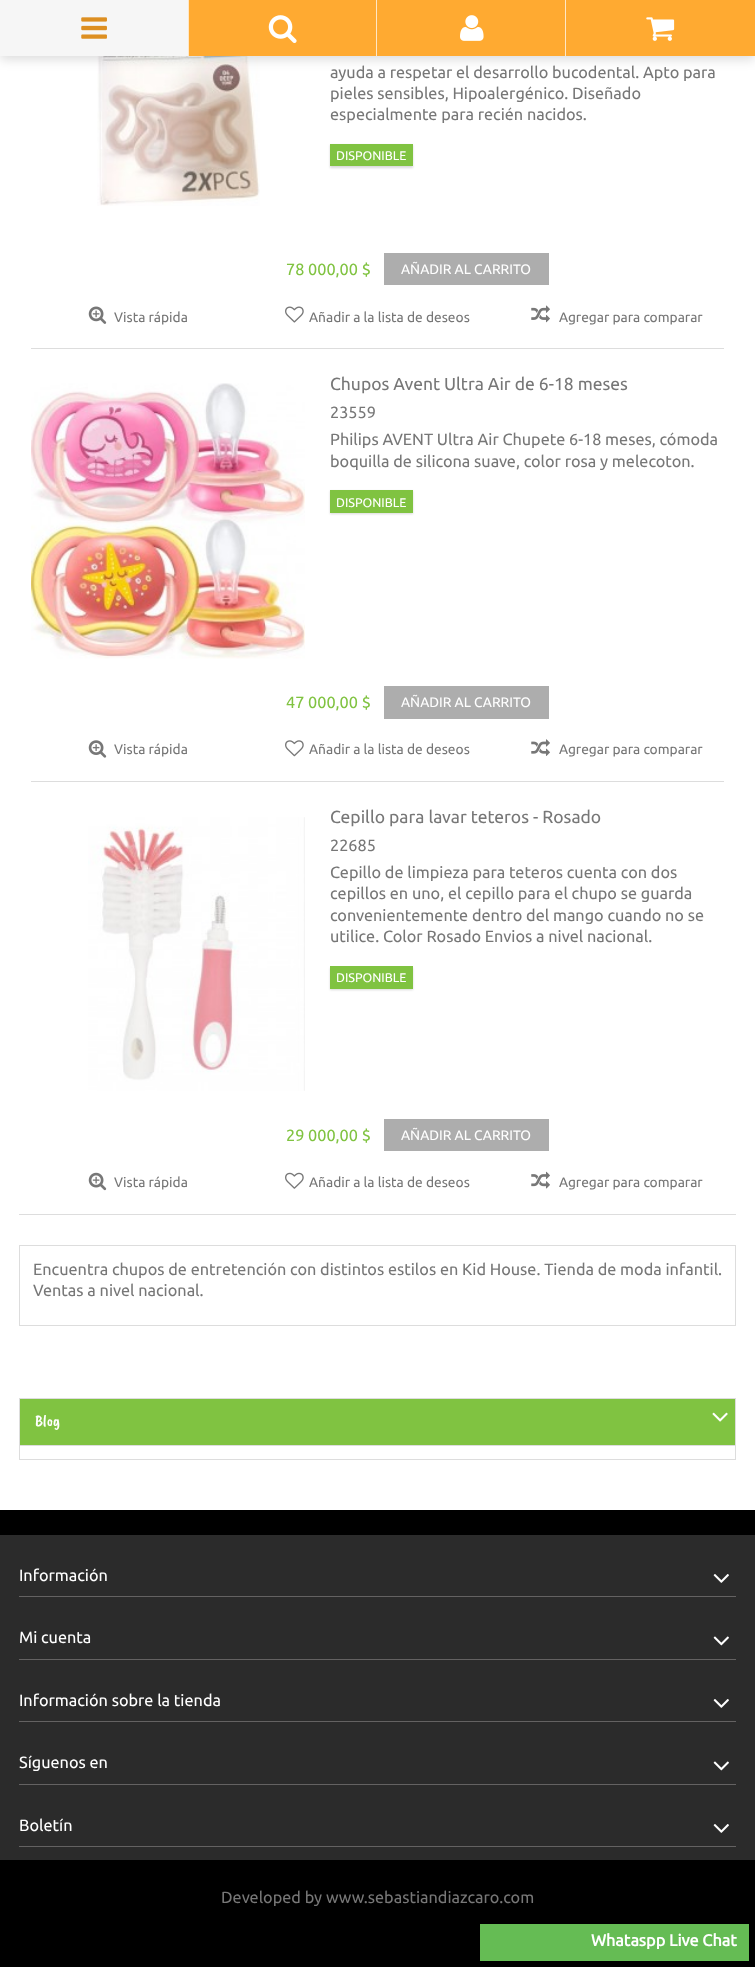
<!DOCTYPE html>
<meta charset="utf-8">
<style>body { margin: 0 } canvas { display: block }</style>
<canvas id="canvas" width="755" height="1967"></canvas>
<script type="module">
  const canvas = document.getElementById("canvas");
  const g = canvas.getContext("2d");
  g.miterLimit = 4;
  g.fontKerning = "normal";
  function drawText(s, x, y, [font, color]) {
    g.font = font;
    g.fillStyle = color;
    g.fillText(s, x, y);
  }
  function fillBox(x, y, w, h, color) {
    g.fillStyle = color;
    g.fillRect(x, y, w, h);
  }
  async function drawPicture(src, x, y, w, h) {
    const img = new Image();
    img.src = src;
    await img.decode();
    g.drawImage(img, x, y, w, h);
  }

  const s1 = ["16.25px Ubuntu", "#777777"];
  const s2 = ["12.5px Ubuntu", "#FFFFFF"];
  const s3 = ["16.25px Ubuntu", "#80C341"];
  const s4 = ["13.75px Ubuntu", "#FFFFFF"];
  const s5 = ["13.75px Ubuntu", "#777777"];
  const s6 = ["17.5px Ubuntu", "#777777"];
  const s7 = ["16.25px Caveat Brush", "#FFFFFF"];
  const s8 = ["16.25px Ubuntu", "#FFFFFF"];
  const s9 = ["bold 16.25px Ubuntu", "#FFFFFF"];

  fillBox(0, 0, 755, 1967, "#FFFFFF");
  await drawPicture("pic5.png", 97, 56, 163, 150);
  g.fillStyle = "rgba(0, 0, 0, 0.15)";
  g.filter = "blur(6px)";
  g.beginPath();
  g.rect(0, 3, 755, 56);
  g.fill();
  g.filter = "none";
  fillBox(189, 0, 566, 56, "#FFAA31");
  fillBox(188, 0, 1, 56, "#FFE7C5");
  fillBox(0, 0, 188, 56, "#F6F6F6");
  await drawPicture("pic1.png", 81, 17, 26, 22);
  fillBox(376, 0, 1, 56, "#FFE7C5");
  await drawPicture("pic2.png", 268, 15, 29, 28);
  fillBox(565, 0, 1, 56, "#FFE7C5");
  await drawPicture("pic3.png", 460, 15, 24, 26);
  await drawPicture("pic4.png", 646, 17, 29, 24);
  drawText("ayuda a respetar el desarrollo bucodental. Apto para", 330, 78, s1);
  drawText("pieles sensibles, Hipoalergénico. Diseñado", 330, 99, s1);
  drawText("especialmente para recién nacidos.", 330, 120, s1);
  g.fillStyle = "rgba(0, 0, 0, 0.15)";
  g.filter = "blur(1px)";
  g.beginPath();
  g.rect(330, 145, 83, 23);
  g.fill();
  g.filter = "none";
  fillBox(330, 144, 83, 22, "#80C341");
  drawText("DISPONIBLE", 336, 160, s2);
  drawText("78 000,00 $", 286, 275, s3);
  fillBox(384, 253, 165, 32, "#ADADAD");
  drawText("AÑADIR AL CARRITO", 401, 274, s4);
  await drawPicture("pic6.png", 88, 306, 19, 18);
  drawText("Vista rápida", 114, 322, s5);
  await drawPicture("pic7.png", 285, 306, 19, 17);
  drawText("Añadir a la lista de deseos", 309, 322, s5);
  await drawPicture("pic8.png", 531, 305, 19, 18);
  drawText("Agregar para comparar", 559, 322, s5);
  fillBox(31, 348, 693, 1, "#DDDDDD");
  await drawPicture("pic9.png", 31, 383, 274, 276);
  await drawPicture("pic10.png", 31, 440, 1, 158);
  drawText("Chupos Avent Ultra Air de 6-18 meses", 330, 390, s6);
  drawText("23559", 330, 418, s1);
  drawText("Philips AVENT Ultra Air Chupete 6-18 meses, cómoda", 330, 445, s1);
  drawText("boquilla de silicona suave, color rosa y melecoton.", 330, 467, s1);
  g.fillStyle = "rgba(0, 0, 0, 0.15)";
  g.filter = "blur(1px)";
  g.beginPath();
  g.rect(330, 491, 83, 23);
  g.fill();
  g.filter = "none";
  fillBox(330, 490, 83, 23, "#80C341");
  drawText("DISPONIBLE", 336, 507, s2);
  drawText("47 000,00 $", 286, 708, s3);
  fillBox(384, 686, 165, 33, "#ADADAD");
  drawText("AÑADIR AL CARRITO", 401, 707, s4);
  await drawPicture("pic11.png", 88, 740, 19, 18);
  drawText("Vista rápida", 114, 754, s5);
  await drawPicture("pic12.png", 285, 740, 19, 17);
  drawText("Añadir a la lista de deseos", 309, 754, s5);
  await drawPicture("pic13.png", 531, 739, 19, 17);
  drawText("Agregar para comparar", 559, 754, s5);
  fillBox(31, 781, 693, 1, "#DDDDDD");
  await drawPicture("pic14.png", 88, 817, 217, 274);
  drawText("Cepillo para lavar teteros - Rosado", 330, 823, s6);
  drawText("22685", 330, 851, s1);
  drawText("Cepillo de limpieza para teteros cuenta con dos", 330, 878, s1);
  drawText("cepillos en uno, el cepillo para el chupo se guarda", 330, 899, s1);
  drawText("convenientemente dentro del mango cuando no se", 330, 921, s1);
  drawText("utilice. Color Rosado Envios a nivel nacional.", 330, 942, s1);
  g.fillStyle = "rgba(0, 0, 0, 0.15)";
  g.filter = "blur(1px)";
  g.beginPath();
  g.rect(330, 968, 83, 22);
  g.fill();
  g.filter = "none";
  fillBox(330, 966, 83, 23, "#80C341");
  drawText("DISPONIBLE", 336, 982, s2);
  drawText("29 000,00 $", 286, 1141, s3);
  fillBox(384, 1119, 165, 32, "#ADADAD");
  drawText("AÑADIR AL CARRITO", 401, 1140, s4);
  await drawPicture("pic15.png", 88, 1172, 19, 19);
  drawText("Vista rápida", 114, 1187, s5);
  await drawPicture("pic16.png", 285, 1172, 19, 17);
  drawText("Añadir a la lista de deseos", 309, 1187, s5);
  await drawPicture("pic17.png", 531, 1171, 19, 18);
  drawText("Agregar para comparar", 559, 1187, s5);
  fillBox(19, 1214, 717, 1, "#DDDDDD");
  g.strokeStyle = "#DDDDDD";
  g.strokeRect(19.5, 1245.5, 716, 80);
  drawText("Encuentra chupos de entretención con distintos estilos en Kid House. Tienda de moda infantil.", 33, 1275, s1);
  drawText("Ventas a nivel nacional.", 33, 1296, s1);
  g.strokeRect(19.5, 1398.5, 716, 61);
  fillBox(20, 1399, 715, 46, "#80C341");
  fillBox(20, 1445, 715, 1, "#DDDDDD");
  drawText("Blog", 35, 1426, s7);
  await drawPicture("pic18.png", 712, 1412, 16, 10);
  fillBox(0, 1510, 755, 457, "#000000");
  fillBox(0, 1535, 755, 325, "#2B2B2B");
  fillBox(19, 1596, 717, 1, "#646262");
  drawText("Información", 19, 1581, s8);
  await drawPicture("pic19.png", 713, 1574, 16, 9);
  fillBox(19, 1659, 717, 1, "#646262");
  drawText("Mi cuenta", 19, 1643, s8);
  await drawPicture("pic20.png", 713, 1636, 16, 10);
  fillBox(19, 1721, 717, 1, "#646262");
  drawText("Información sobre la tienda", 19, 1706, s8);
  await drawPicture("pic19.png", 713, 1699, 16, 9);
  fillBox(19, 1784, 717, 1, "#646262");
  drawText("Síguenos en", 19, 1768, s8);
  await drawPicture("pic20.png", 713, 1761, 16, 10);
  fillBox(19, 1846, 717, 1, "#646262");
  drawText("Boletín", 19, 1831, s8);
  await drawPicture("pic19.png", 713, 1824, 16, 9);
  fillBox(480, 1924, 269, 37, "#65BC54");
  drawText("Whataspp Live Chat", 591, 1946, s9);
  drawText("Developed by www.sebastiandiazcaro.com", 221, 1903, s1);
</script>
